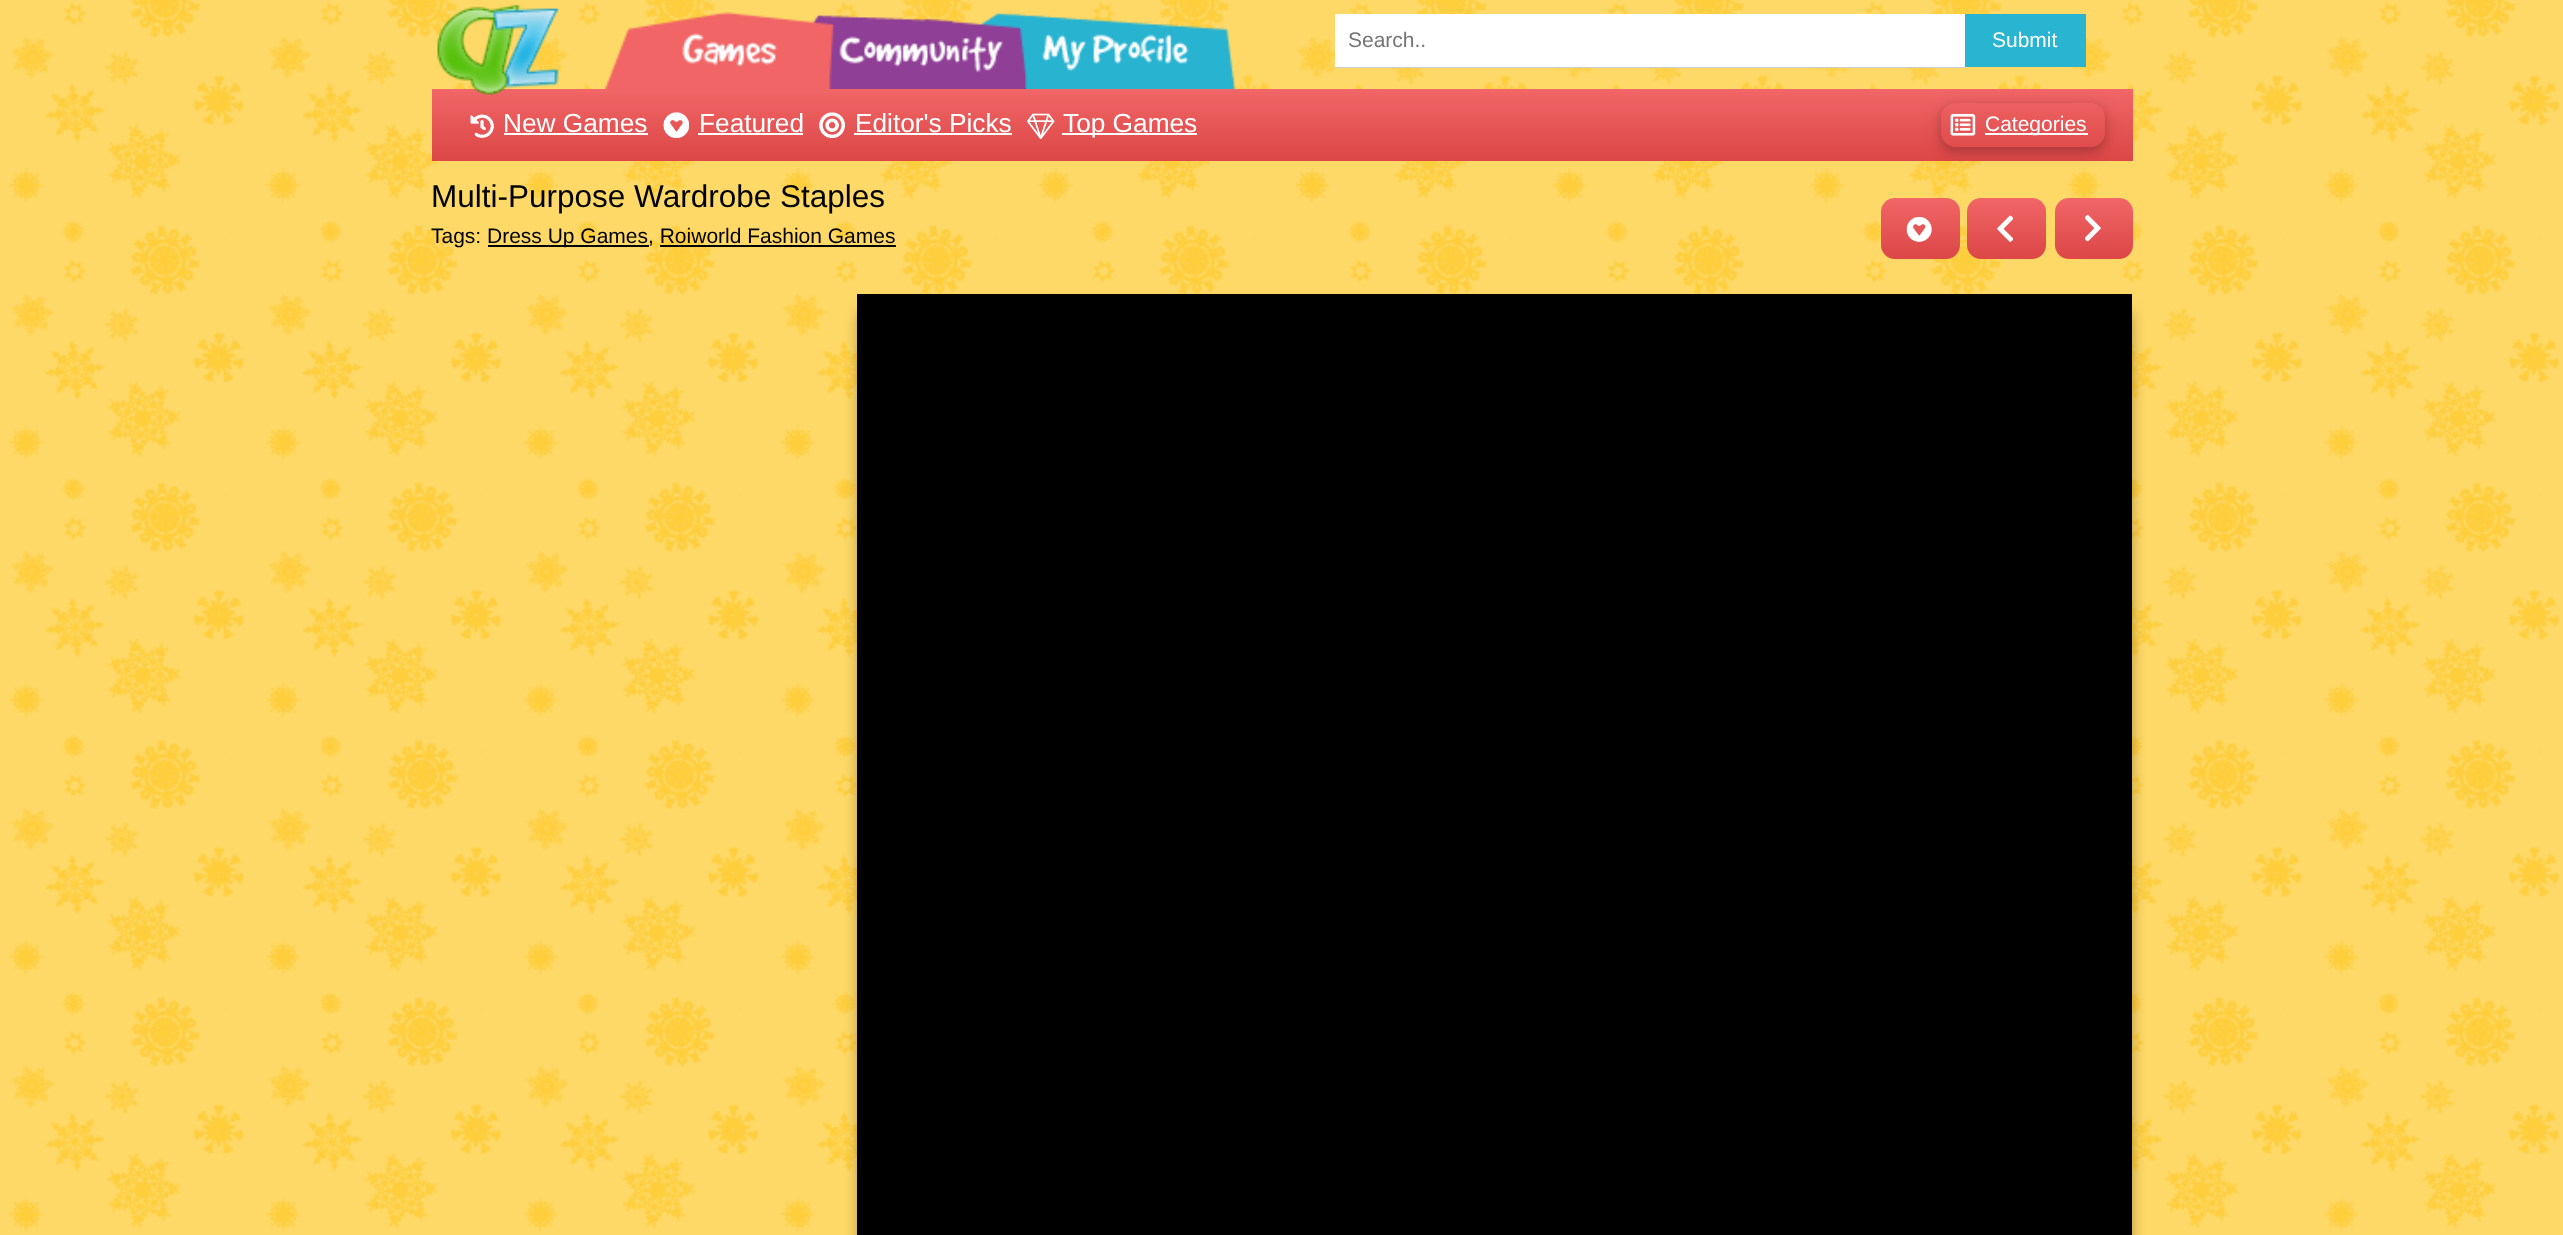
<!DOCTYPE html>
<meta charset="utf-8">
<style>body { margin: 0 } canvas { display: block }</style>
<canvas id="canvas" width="2563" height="1235"></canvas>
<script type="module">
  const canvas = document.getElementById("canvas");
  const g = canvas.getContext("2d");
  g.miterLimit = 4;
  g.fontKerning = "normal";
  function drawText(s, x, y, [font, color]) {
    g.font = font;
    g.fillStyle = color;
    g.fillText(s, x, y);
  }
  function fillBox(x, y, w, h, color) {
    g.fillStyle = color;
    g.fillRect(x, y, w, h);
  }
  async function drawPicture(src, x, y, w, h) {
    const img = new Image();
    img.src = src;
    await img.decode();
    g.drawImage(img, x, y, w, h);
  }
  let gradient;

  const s1 = ["21px Liberation Sans", "#757575"];
  const s2 = ["21px Liberation Sans", "#FFFFFF"];
  const s3 = ["26.25px Liberation Sans", "#FFFFFF"];
  const s4 = ["31.5px Liberation Sans", "#000000"];
  const s5 = ["21px Liberation Sans", "#000000"];

  fillBox(0, 0, 2563, 1235, "#FED968");
  await drawPicture("pic1.png", 8, 0, 2551, 1232);
  await drawPicture("pic2.png", 604, 12, 632, 77);
  gradient = g.createLinearGradient(1283, 89, 1283, 161);
  gradient.addColorStop(0, "#F16667");
  gradient.addColorStop(1, "#DC4646");
  g.fillStyle = gradient;
  g.fillRect(432, 89, 1701, 72);
  await drawPicture("pic3.png", 437, 4, 122, 91);
  fillBox(1335, 14, 630, 53, "#FFFFFF");
  fillBox(1335, 67, 630, 1, "#CCCCCC");
  drawText("Search..", 1348, 47, s1);
  fillBox(1965, 14, 121, 53, "#29B4D1");
  drawText("Submit", 1992, 47, s2);
  await drawPicture("pic4.png", 470, 114, 24, 24);
  drawText("New Games", 503, 132, s3);
  fillBox(504, 133, 144, 2, "#FFFFFF");
  await drawPicture("pic5.png", 663, 112, 26, 26);
  drawText("Featured", 699, 132, s3);
  fillBox(698, 133, 105, 2, "#FFFFFF");
  await drawPicture("pic6.png", 819, 112, 26, 26);
  drawText("Editor's Picks", 855, 132, s3);
  fillBox(854, 133, 158, 2, "#FFFFFF");
  await drawPicture("pic7.png", 1027, 113, 28, 26);
  fillBox(1062, 133, 135, 2, "#FFFFFF");
  drawText("Top Games", 1063, 132, s3);
  g.save();
  g.beginPath();
  g.moveTo(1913, 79);
  g.lineTo(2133, 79);
  g.lineTo(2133, 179);
  g.lineTo(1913, 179);
  g.closePath();
  g.moveTo(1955, 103);
  g.lineTo(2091, 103);
  g.bezierCurveTo(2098.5, 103, 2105, 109.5, 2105, 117);
  g.lineTo(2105, 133);
  g.bezierCurveTo(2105, 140.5, 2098.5, 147, 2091, 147);
  g.lineTo(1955, 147);
  g.bezierCurveTo(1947.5, 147, 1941, 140.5, 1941, 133);
  g.lineTo(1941, 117);
  g.bezierCurveTo(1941, 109.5, 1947.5, 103, 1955, 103);
  g.closePath();
  g.clip("evenodd");
  g.fillStyle = "rgba(0, 0, 0, 0.12)";
  g.filter = "blur(9px)";
  g.beginPath();
  g.roundRect(1941, 107, 164, 44, 14);
  g.fill();
  g.filter = "none";
  g.restore();
  g.save();
  g.beginPath();
  g.moveTo(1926, 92);
  g.lineTo(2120, 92);
  g.lineTo(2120, 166);
  g.lineTo(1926, 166);
  g.closePath();
  g.moveTo(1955, 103);
  g.lineTo(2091, 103);
  g.bezierCurveTo(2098.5, 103, 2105, 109.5, 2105, 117);
  g.lineTo(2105, 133);
  g.bezierCurveTo(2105, 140.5, 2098.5, 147, 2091, 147);
  g.lineTo(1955, 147);
  g.bezierCurveTo(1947.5, 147, 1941, 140.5, 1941, 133);
  g.lineTo(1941, 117);
  g.bezierCurveTo(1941, 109.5, 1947.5, 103, 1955, 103);
  g.closePath();
  g.clip("evenodd");
  g.fillStyle = "rgba(0, 0, 0, 0.16)";
  g.filter = "blur(4.5px)";
  g.beginPath();
  g.roundRect(1941, 107, 164, 44, 14);
  g.fill();
  g.filter = "none";
  g.restore();
  await drawPicture("pic8.png", 1950, 113, 26, 23);
  fillBox(1985, 133, 103, 2, "#FFFFFF");
  drawText("Categories", 1985, 131, s2);
  drawText("Multi-Purpose Wardrobe Staples", 431, 207, s4);
  drawText("Tags:", 431, 243, s5);
  fillBox(488, 245, 161, 2, "#000000");
  drawText("Dress Up Games, Roiworld Fashion Games", 487, 243, s5);
  fillBox(660, 245, 236, 2, "#000000");
  gradient = g.createLinearGradient(1921, 198, 1921, 259);
  gradient.addColorStop(0, "#F16667");
  gradient.addColorStop(1, "#DC4646");
  g.fillStyle = gradient;
  g.beginPath();
  g.roundRect(1881, 198, 79, 61, 14);
  g.fill();
  await drawPicture("pic9.png", 1906, 217, 26, 25);
  gradient = g.createLinearGradient(2006, 198, 2006, 259);
  gradient.addColorStop(0, "#F16667");
  gradient.addColorStop(1, "#DC4646");
  g.fillStyle = gradient;
  g.beginPath();
  g.roundRect(1967, 198, 79, 61, 14);
  g.fill();
  await drawPicture("pic10.png", 1997, 215, 16, 27);
  gradient = g.createLinearGradient(2094, 198, 2094, 259);
  gradient.addColorStop(0, "#F16667");
  gradient.addColorStop(1, "#DC4646");
  g.fillStyle = gradient;
  g.beginPath();
  g.roundRect(2055, 198, 78, 61, 14);
  g.fill();
  await drawPicture("pic11.png", 2085, 215, 16, 27);
  g.fillStyle = "rgba(0, 0, 0, 0.3)";
  g.filter = "blur(7px)";
  g.beginPath();
  g.roundRect(858, 305, 1274, 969, 18);
  g.fill();
  g.filter = "none";
  fillBox(857, 294, 1275, 941, "#000000");
</script>
